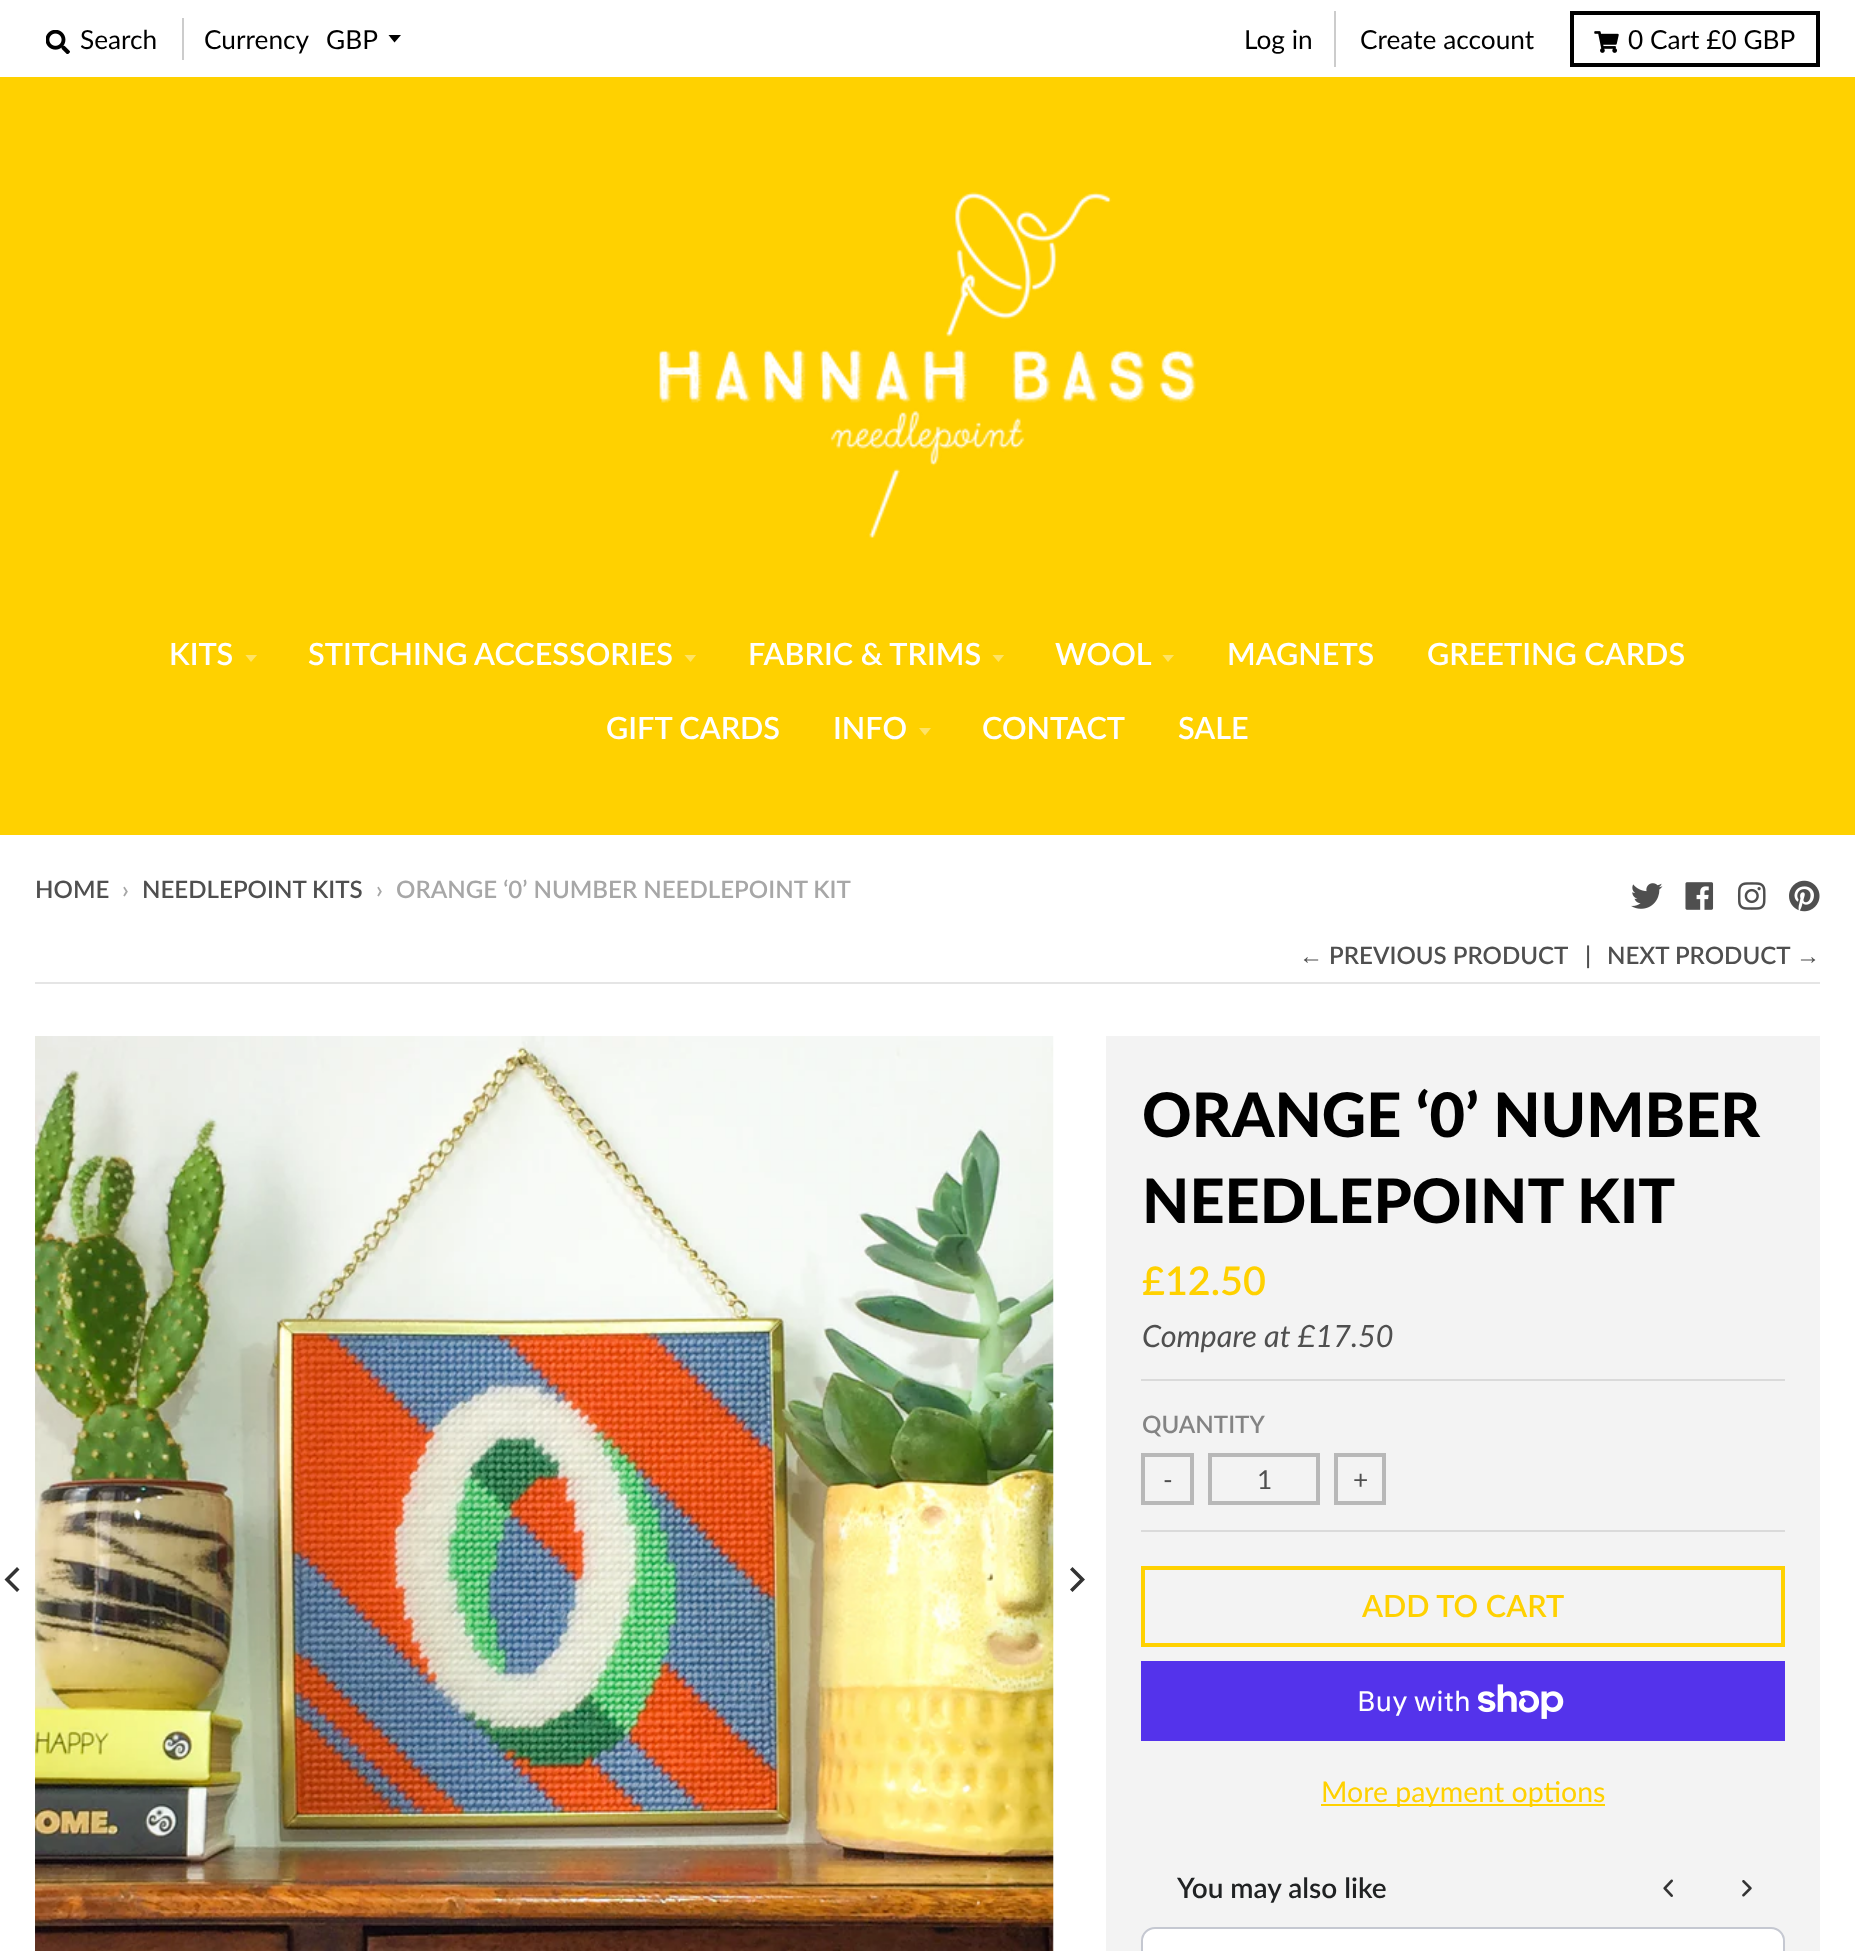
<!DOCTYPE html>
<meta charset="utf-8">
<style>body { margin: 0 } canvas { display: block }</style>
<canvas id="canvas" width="1855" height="1951"></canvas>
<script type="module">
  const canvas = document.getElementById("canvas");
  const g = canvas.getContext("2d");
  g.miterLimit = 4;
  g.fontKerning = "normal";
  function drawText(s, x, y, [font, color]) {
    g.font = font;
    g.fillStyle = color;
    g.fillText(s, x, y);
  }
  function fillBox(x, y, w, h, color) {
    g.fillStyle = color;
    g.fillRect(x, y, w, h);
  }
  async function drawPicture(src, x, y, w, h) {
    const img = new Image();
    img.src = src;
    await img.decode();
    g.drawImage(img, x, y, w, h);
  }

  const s1 = ["26.25px Lato", "#000000"];
  const s2 = ["600 30.6px Lato", "#FFFFFF"];
  const s3 = ["600 24.1px Lato", "#4F4F4F"];
  const s4 = ["600 24.1px Lato", "#A7A7A7"];
  const s5 = ["bold 24.1px Liberation Sans", "#4F4F4F"];
  const s6 = ["900 61.25px Lato", "#000000"];
  const s7 = ["600 39.5px Lato", "#FFD100"];
  const s8 = ["italic 30.6px Lato", "#4F4F4F"];
  const s9 = ["600 24.1px Lato", "#838383"];
  const s10 = ["26.25px Lato", "#4F4F4F"];
  const s11 = ["600 30.6px Lato", "#FFD100"];
  const s12 = ["28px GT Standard", "#FFFFFF"];
  const s13 = ["28.5px Lato", "#FFD100"];
  const s14 = ["600 28px Lato", "#202223"];

  fillBox(0, 0, 1855, 1951, "#FFFFFF");
  await drawPicture("pic1.png", 46, 30, 24, 24);
  drawText("Search", 80, 49, s1);
  fillBox(182, 18, 2, 42, "#CCCCCC");
  drawText("Currency", 204, 49, s1);
  g.beginPath();
  g.moveTo(388.5, 35);
  g.lineTo(394.5, 42.5);
  g.lineTo(401, 35);
  g.closePath();
  g.fill();
  drawText("GBP", 326, 49, s1);
  fillBox(1334, 11, 2, 56, "#CCCCCC");
  drawText("Log in", 1244, 49, s1);
  drawText("Create account", 1360, 49, s1);
  g.strokeStyle = "#000000";
  g.lineWidth = 4;
  g.strokeRect(1572, 13, 246, 52);
  await drawPicture("pic2.png", 1594, 31, 25, 22);
  drawText("0 Cart £0 GBP", 1628, 49, s1);
  fillBox(0, 77, 1855, 758, "#FFD100");
  await drawPicture("pic3.png", 658, 192, 538, 346);
  drawText("KITS", 169, 665, s2);
  g.save();
  g.beginPath();
  g.rect(245, 655, 14, 8);
  g.clip();
  g.fillStyle = "#FFE366";
  g.beginPath();
  g.moveTo(245, 654.5);
  g.lineTo(251, 662);
  g.lineTo(257.5, 654.5);
  g.closePath();
  g.fill();
  g.restore();
  drawText("STITCHING ACCESSORIES", 308, 665, s2);
  g.save();
  g.beginPath();
  g.rect(684, 655, 14, 8);
  g.clip();
  g.fillStyle = "#FFE366";
  g.beginPath();
  g.moveTo(684, 654.5);
  g.lineTo(690.5, 662);
  g.lineTo(696.5, 654.5);
  g.closePath();
  g.fill();
  g.restore();
  drawText("FABRIC & TRIMS", 748, 665, s2);
  g.save();
  g.beginPath();
  g.rect(992, 655, 14, 8);
  g.clip();
  g.fillStyle = "#FFE366";
  g.beginPath();
  g.moveTo(992, 654.5);
  g.lineTo(998.5, 662);
  g.lineTo(1004.5, 654.5);
  g.closePath();
  g.fill();
  g.restore();
  drawText("WOOL", 1055, 665, s2);
  g.save();
  g.beginPath();
  g.rect(1162, 655, 14, 8);
  g.clip();
  g.fillStyle = "#FFE366";
  g.beginPath();
  g.moveTo(1162, 654.5);
  g.lineTo(1168, 662);
  g.lineTo(1174.5, 654.5);
  g.closePath();
  g.fill();
  g.restore();
  drawText("MAGNETS", 1227, 665, s2);
  drawText("GREETING CARDS", 1427, 665, s2);
  drawText("GIFT CARDS", 606, 739, s2);
  drawText("INFO", 833, 739, s2);
  g.fillStyle = "#FFE366";
  g.beginPath();
  g.moveTo(919, 728);
  g.lineTo(925, 735.5);
  g.lineTo(931, 728);
  g.closePath();
  g.fill();
  drawText("CONTACT", 982, 739, s2);
  drawText("SALE", 1178, 739, s2);
  drawText("HOME", 35, 898, s3);
  drawText("›", 122, 898, s4);
  drawText("NEEDLEPOINT KITS", 142, 898, s3);
  drawText("›", 376, 898, s4);
  drawText("ORANGE ‘0’ NUMBER NEEDLEPOINT KIT", 396, 898, s4);
  await drawPicture("pic4.png", 1631, 883, 32, 26);
  await drawPicture("pic5.png", 1685, 882, 29, 28);
  await drawPicture("pic6.png", 1737, 882, 29, 28);
  await drawPicture("pic7.png", 1789, 880, 31, 32);
  fillBox(35, 982, 1785, 2, "#E5E5E5");
  drawText("←", 1299, 964, s5);
  drawText("PREVIOUS PRODUCT", 1329, 964, s3);
  drawText("|", 1585, 964, s3);
  drawText("NEXT PRODUCT", 1607, 964, s3);
  drawText("→", 1796, 964, s5);
  g.fillStyle = "#333333";
  g.beginPath();
  g.moveTo(4.5, 1579.5);
  g.lineTo(17, 1592);
  g.lineTo(19.5, 1589.5);
  g.lineTo(9.5, 1579.5);
  g.lineTo(19.5, 1569.5);
  g.lineTo(17, 1567);
  g.closePath();
  g.fill();
  await drawPicture("pic8.png", 35, 1036, 1019, 915);
  g.beginPath();
  g.moveTo(1085, 1579.5);
  g.lineTo(1072.5, 1567);
  g.lineTo(1070, 1569.5);
  g.lineTo(1080, 1579.5);
  g.lineTo(1070, 1589.5);
  g.lineTo(1072.5, 1592);
  g.closePath();
  g.fill();
  fillBox(1106, 1036, 714, 915, "#F3F3F3");
  drawText("ORANGE ‘0’ NUMBER", 1142, 1137, s6);
  drawText("NEEDLEPOINT KIT", 1142, 1223, s6);
  fillBox(1141, 1379, 644, 2, "#DADADA");
  drawText("£12.50", 1142, 1295, s7);
  drawText("Compare at £17.50", 1142, 1347, s8);
  fillBox(1141, 1530, 644, 2, "#DADADA");
  drawText("QUANTITY", 1142, 1433, s9);
  g.strokeStyle = "#B8B8B8";
  g.strokeRect(1143, 1455, 49, 48);
  drawText("-", 1163, 1489, s10);
  g.strokeRect(1210, 1455, 108, 48);
  drawText("1", 1257, 1489, s10);
  g.strokeRect(1336, 1455, 48, 48);
  drawText("+", 1353, 1489, s10);
  g.strokeStyle = "#FFD100";
  g.strokeRect(1143, 1568, 640, 77);
  drawText("ADD TO CART", 1362, 1617, s11);
  fillBox(1141, 1661, 644, 80, "#5433EB");
  drawText("Buy with", 1357, 1711, s12);
  await drawPicture("pic9.png", 1478, 1684, 86, 35);
  fillBox(1321, 1804, 284, 2, "#FFD100");
  drawText("More payment options", 1321, 1802, s13);
  drawText("You may also like", 1177, 1898, s14);
  await drawPicture("pic10.png", 1663, 1879, 10, 18);
  await drawPicture("pic11.png", 1742, 1880, 10, 17);
  g.fillStyle = "#FFFFFF";
  g.beginPath();
  g.roundRect(1142, 1928, 642, 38, 13);
  g.fill();
  g.strokeStyle = "#C5C8D1";
  g.lineWidth = 2;
  g.stroke();
</script>
